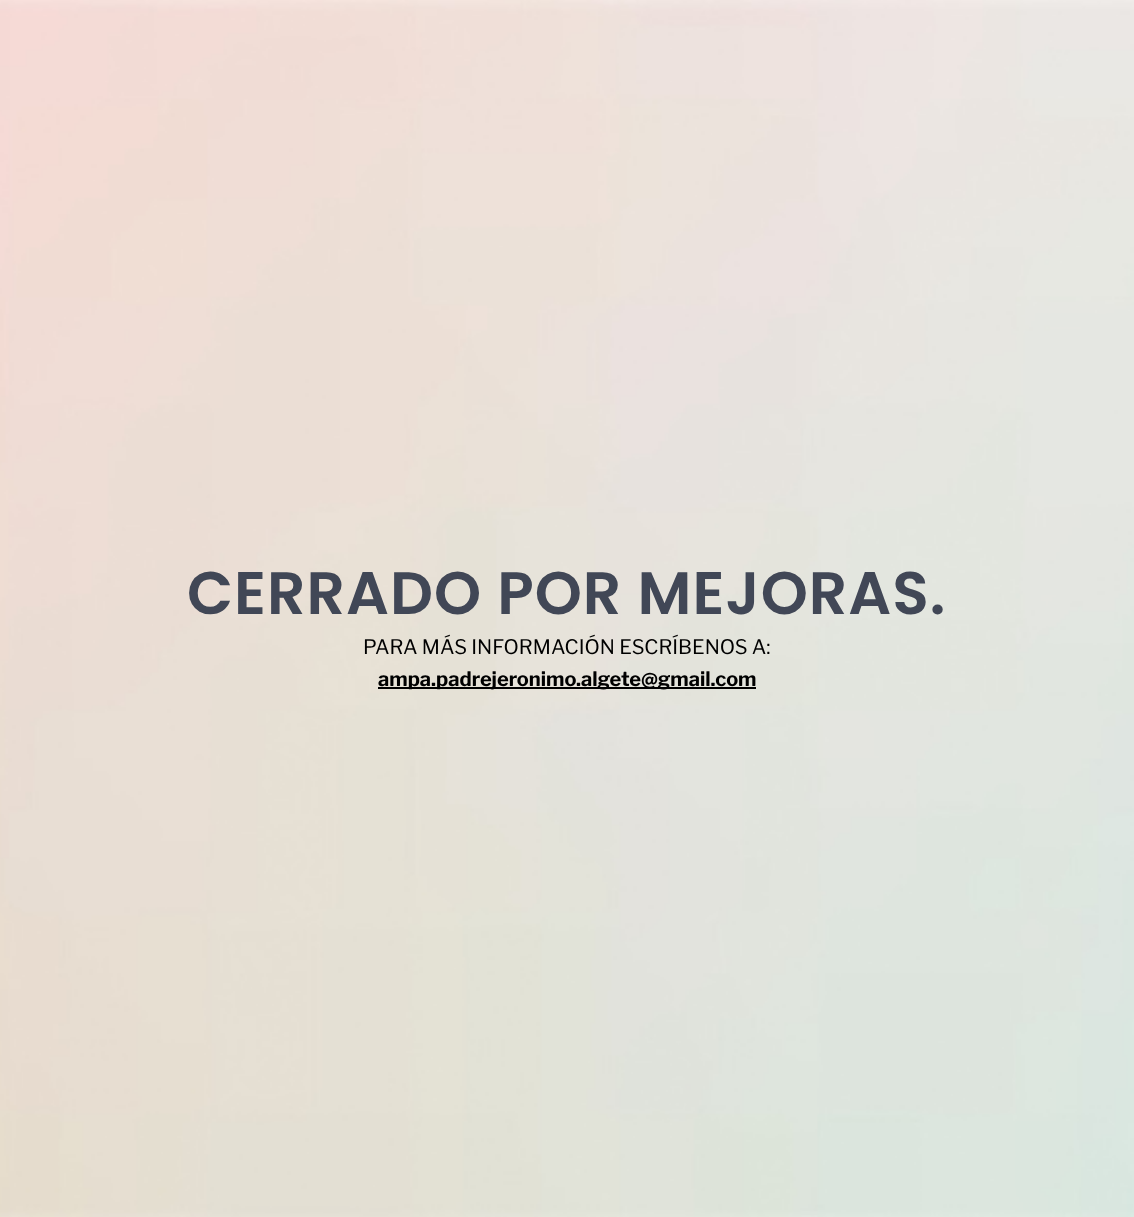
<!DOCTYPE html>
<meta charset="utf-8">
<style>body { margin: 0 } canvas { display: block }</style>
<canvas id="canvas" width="1134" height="1217"></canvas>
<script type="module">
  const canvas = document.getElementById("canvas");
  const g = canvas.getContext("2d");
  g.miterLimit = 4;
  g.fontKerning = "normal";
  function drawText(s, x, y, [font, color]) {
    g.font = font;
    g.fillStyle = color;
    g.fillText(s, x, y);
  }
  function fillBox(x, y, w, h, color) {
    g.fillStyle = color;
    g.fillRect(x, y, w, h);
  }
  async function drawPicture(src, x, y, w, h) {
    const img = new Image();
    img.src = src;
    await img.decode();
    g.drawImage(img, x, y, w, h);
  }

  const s1 = ["600 60px Poppins", "#414756"];
  const s2 = ["20px Libre Franklin", "#000000"];
  const s3 = ["bold 20px Libre Franklin", "#000000"];

  fillBox(0, 0, 1134, 1217, "#FFFFFF");
  await drawPicture("pic1.png", 0, 0, 1134, 1217);
  g.letterSpacing = "1px";
  drawText("CERRADO POR MEJORAS.", 187, 614, s1);
  g.letterSpacing = "0px";
  drawText("PARA MÁS INFORMACIÓN ESCRÍBENOS A:", 363, 654, s2);
  fillBox(378, 687, 378, 2, "#000000");
  drawText("ampa.padrejeronimo.algete@gmail.com", 378, 686, s3);
</script>
